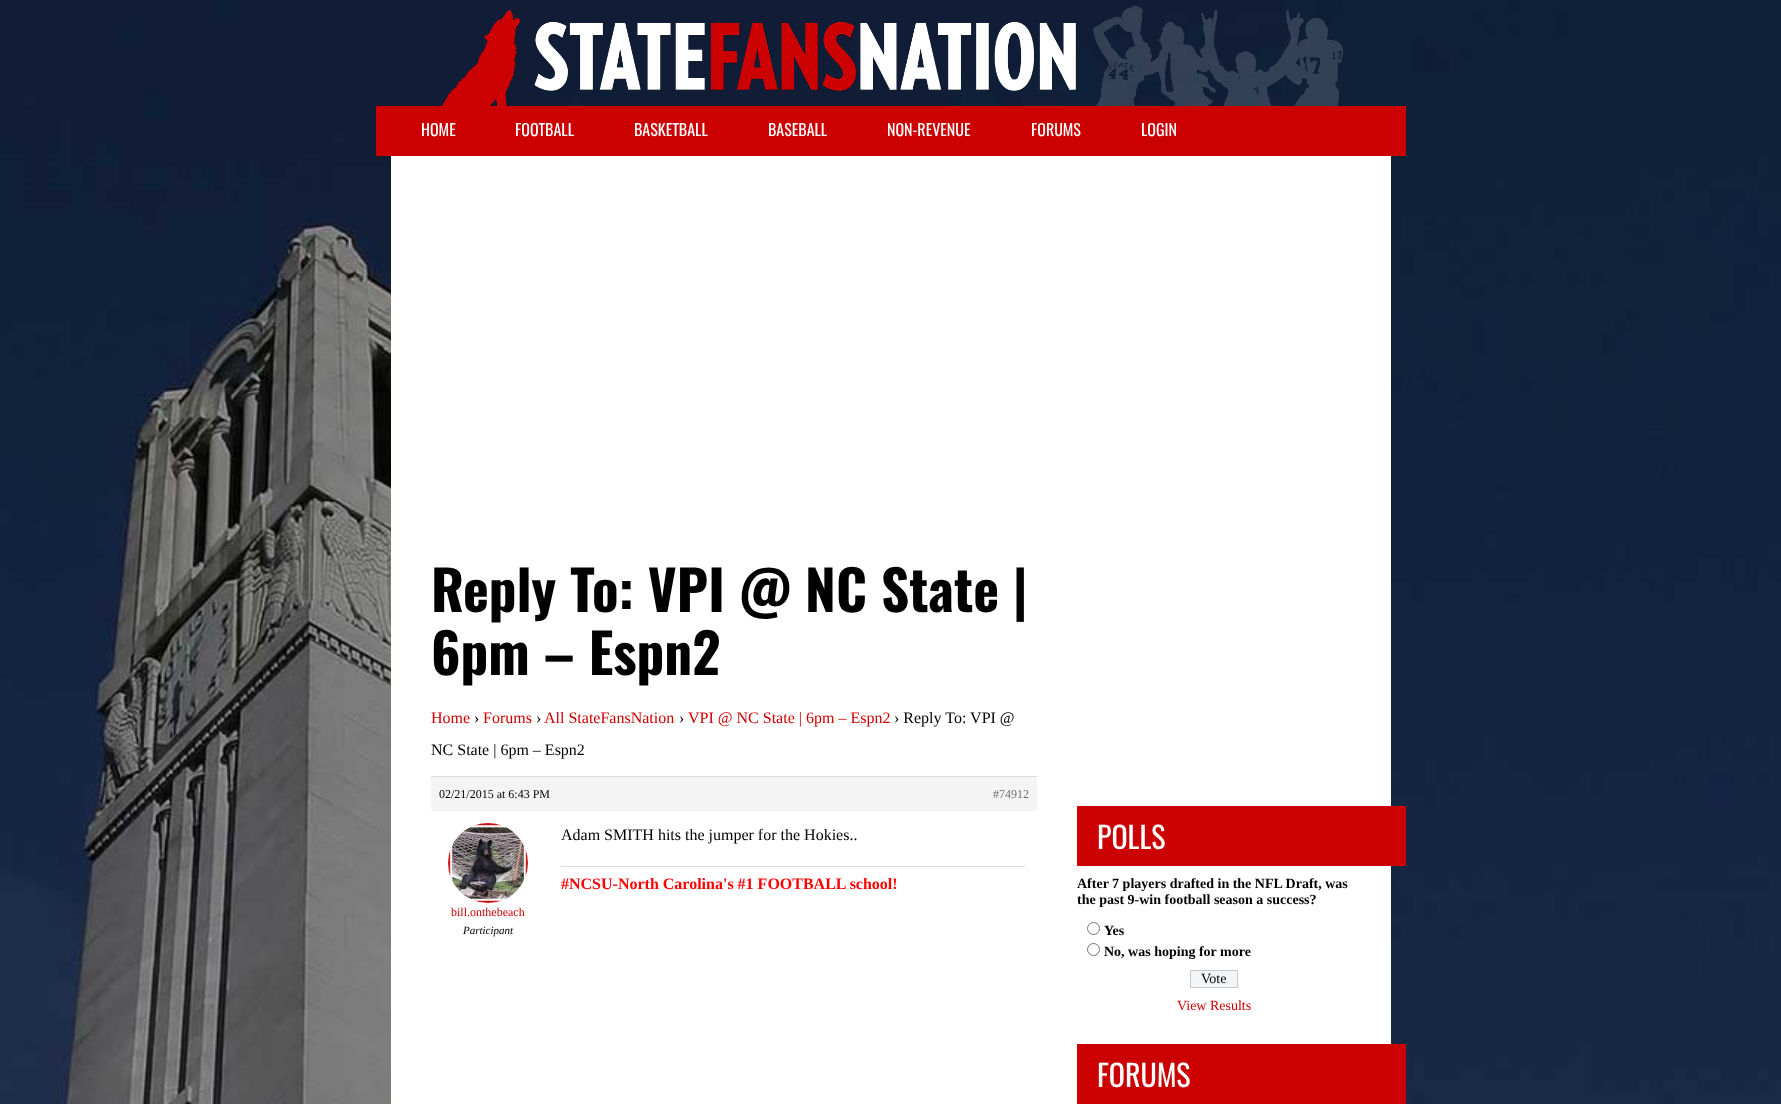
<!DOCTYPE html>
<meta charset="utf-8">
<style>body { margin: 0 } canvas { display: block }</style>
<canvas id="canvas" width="1781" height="1104"></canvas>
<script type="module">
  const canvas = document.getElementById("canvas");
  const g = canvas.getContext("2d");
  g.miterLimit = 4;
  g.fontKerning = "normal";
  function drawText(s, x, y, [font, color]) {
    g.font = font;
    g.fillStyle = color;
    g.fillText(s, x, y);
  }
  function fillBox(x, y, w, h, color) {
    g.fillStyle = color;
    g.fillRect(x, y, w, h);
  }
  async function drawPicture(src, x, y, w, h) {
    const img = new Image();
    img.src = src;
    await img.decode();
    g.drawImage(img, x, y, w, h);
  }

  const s1 = ["16px Oswald", "#FFFFFF"];
  const s2 = ["bold 55px Oswald", "#000000"];
  const s3 = ["16px Liberation Serif", "#CC0000"];
  const s4 = ["16px Liberation Serif", "#000000"];
  const s5 = ["12px Liberation Serif", "#000000"];
  const s6 = ["12px Liberation Serif", "#707070"];
  const s7 = ["bold 16px Liberation Serif", "#FF0000"];
  const s8 = ["12px Liberation Serif", "#CC0000"];
  const s9 = ["italic 11px Liberation Serif", "#000000"];
  const s10 = ["30px Oswald", "#FFFFFF"];
  const s11 = ["bold 14px Liberation Serif", "#000000"];
  const s12 = ["14px Liberation Serif", "#000000"];
  const s13 = ["14px Liberation Serif", "#CC0000"];

  fillBox(0, 0, 1781, 1104, "#FFFFFF");
  await drawPicture("pic1.png", 0, 0, 1781, 1104);
  await drawPicture("pic2.png", 442, 5, 901, 101);
  fillBox(376, 106, 1030, 50, "#CC0000");
  drawText("HOME", 421, 136, s1);
  drawText("FOOTBALL", 515, 136, s1);
  drawText("BASKETBALL", 634, 136, s1);
  drawText("BASEBALL", 768, 136, s1);
  drawText("NON-REVENUE", 887, 136, s1);
  drawText("FORUMS", 1031, 136, s1);
  drawText("LOGIN", 1141, 136, s1);
  fillBox(391, 156, 1000, 948, "#FFFFFF");
  drawText("Reply To: VPI @ NC State |", 431, 612, s2);
  drawText("6pm – Espn2", 431, 675, s2);
  drawText("Home", 431, 723, s3);
  drawText("›", 474, 723, s4);
  drawText("Forums", 483, 723, s3);
  drawText("›", 536, 723, s4);
  drawText("All StateFansNation", 544, 723, s3);
  drawText("›", 679, 723, s4);
  drawText("VPI @ NC State | 6pm – Espn2", 688, 723, s3);
  drawText("› Reply To: VPI @", 894, 723, s4);
  drawText("NC State | 6pm – Espn2", 431, 755, s4);
  fillBox(431, 777, 606, 34, "#F4F4F4");
  fillBox(431, 776, 606, 1, "#DDDDDD");
  drawText("02/21/2015 at 6:43 PM", 439, 798, s5);
  drawText("#74912", 993, 798, s6);
  drawText("Adam SMITH hits the jumper for the Hokies..", 561, 840, s4);
  fillBox(561, 866, 464, 1, "#DDDDDD");
  drawText("#NCSU-North Carolina's #1 FOOTBALL school!", 561, 889, s7);
  await drawPicture("pic3.png", 448, 823, 80, 80);
  drawText("bill.onthebeach", 451, 916, s8);
  drawText("Participant", 463, 934, s9);
  fillBox(1077, 806, 329, 60, "#CC0000");
  drawText("POLLS", 1097, 849, s10);
  drawText("After 7 players drafted in the NFL Draft, was", 1077, 888, s11);
  drawText("the past 9-win football season a success?", 1077, 904, s11);
  g.beginPath();
  g.arc(1093.5, 928.5, 6, 0, Math.PI * 2);
  g.strokeStyle = "#767676";
  g.stroke();
  drawText("Yes", 1104, 935, s11);
  g.beginPath();
  g.arc(1093.5, 949.5, 6, 0, Math.PI * 2);
  g.stroke();
  drawText("No, was hoping for more", 1104, 956, s11);
  g.fillStyle = "#F3F6F8";
  g.beginPath();
  g.rect(1190.5, 970.5, 47, 17);
  g.fill();
  g.strokeStyle = "#C8C8C8";
  g.stroke();
  drawText("Vote", 1201, 983, s12);
  drawText("View Results", 1177, 1010, s13);
  fillBox(1077, 1044, 329, 60, "#CC0000");
  drawText("FORUMS", 1097, 1087, s10);
</script>
